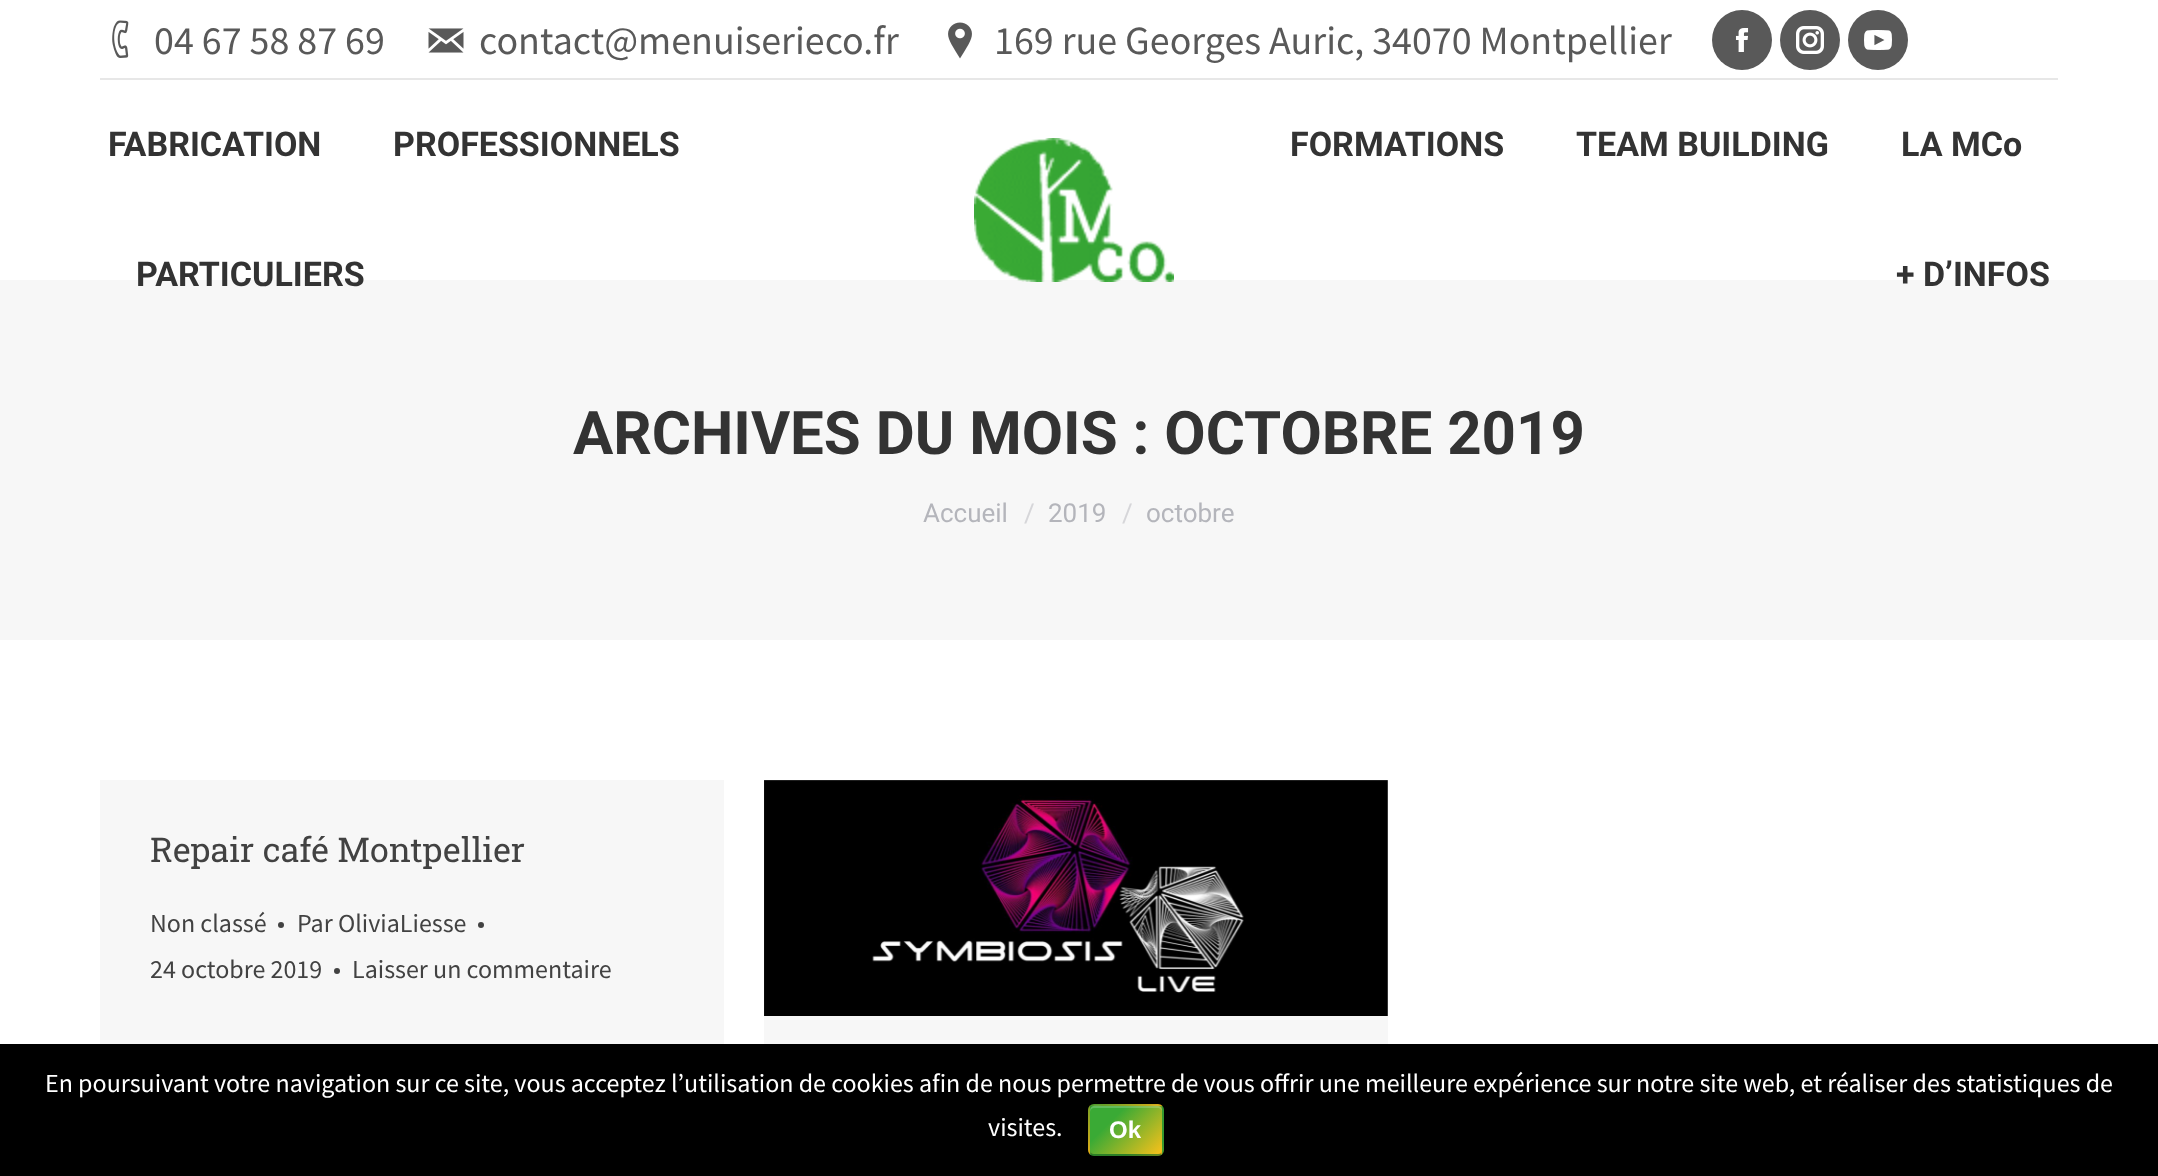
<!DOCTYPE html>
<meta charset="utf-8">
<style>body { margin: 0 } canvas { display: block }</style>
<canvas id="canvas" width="2158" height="1176"></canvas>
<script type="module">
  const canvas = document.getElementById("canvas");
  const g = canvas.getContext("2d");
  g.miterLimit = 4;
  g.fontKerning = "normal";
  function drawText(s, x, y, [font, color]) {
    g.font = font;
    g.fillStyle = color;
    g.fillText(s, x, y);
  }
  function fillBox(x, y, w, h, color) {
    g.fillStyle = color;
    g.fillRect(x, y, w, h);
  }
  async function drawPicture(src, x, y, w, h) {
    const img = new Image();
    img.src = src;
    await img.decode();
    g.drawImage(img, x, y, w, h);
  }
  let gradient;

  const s1 = ["40px Source Sans Pro", "#595959"];
  const s2 = ["bold 34px Roboto", "#333333"];
  const s3 = ["bold 60px Roboto", "#333333"];
  const s4 = ["26px Roboto", "#B4B5BB"];
  const s5 = ["26px Roboto", "#D6D6D9"];
  const s6 = ["34px Roboto Slab", "#424242"];
  const s7 = ["26px Source Sans Pro", "#424242"];
  const s8 = ["26px Source Sans Pro", "#FFFFFF"];
  const s9 = ["bold 24px Liberation Sans", "#FFFFFF"];

  fillBox(0, 0, 2158, 1176, "#FFFFFF");
  await drawPicture("pic1.png", 112, 20, 17, 38);
  drawText("04 67 58 87 69", 154, 54, s1);
  await drawPicture("pic2.png", 428, 28, 36, 25);
  drawText("contact@menuiserieco.fr", 479, 54, s1);
  await drawPicture("pic3.png", 948, 22, 24, 37);
  drawText("169 rue Georges Auric, 34070 Montpellier", 994, 54, s1);
  g.beginPath();
  g.arc(1742, 40, 30, 0, Math.PI * 2);
  g.fill();
  await drawPicture("pic4.png", 1735, 28, 14, 24);
  g.beginPath();
  g.arc(1810, 40, 30, 0, Math.PI * 2);
  g.fill();
  await drawPicture("pic5.png", 1796, 26, 28, 28);
  g.beginPath();
  g.arc(1878, 40, 30, 0, Math.PI * 2);
  g.fill();
  await drawPicture("pic6.png", 1864, 30, 28, 20);
  fillBox(100, 78, 1958, 2, "#E7E7E7");
  drawText("FABRICATION", 108, 156, s2);
  drawText("PROFESSIONNELS", 393, 156, s2);
  fillBox(0, 280, 2158, 360, "#F7F7F7");
  drawText("PARTICULIERS", 136, 286, s2);
  await drawPicture("pic7.png", 974, 138, 200, 144);
  drawText("FORMATIONS", 1290, 156, s2);
  drawText("TEAM BUILDING", 1576, 156, s2);
  drawText("LA MCo", 1901, 156, s2);
  drawText("+ D’INFOS", 1896, 286, s2);
  drawText("ARCHIVES DU MOIS : OCTOBRE 2019", 573, 454, s3);
  drawText("Accueil", 923, 522, s4);
  drawText("/", 1024, 522, s5);
  drawText("2019", 1048, 522, s4);
  drawText("/", 1122, 522, s5);
  drawText("octobre", 1146, 522, s4);
  fillBox(100, 780, 624, 264, "#F7F7F7");
  drawText("Repair café Montpellier", 150, 862, s6);
  drawText("Non classé", 150, 932, s7);
  g.beginPath();
  g.arc(281, 925, 3, 0, Math.PI * 2);
  g.fill();
  drawText("Par OliviaLiesse", 297, 932, s7);
  g.beginPath();
  g.arc(481, 925, 3, 0, Math.PI * 2);
  g.fill();
  drawText("24 octobre 2019", 150, 978, s7);
  g.beginPath();
  g.arc(337, 971, 3, 0, Math.PI * 2);
  g.fill();
  drawText("Laisser un commentaire", 352, 978, s7);
  fillBox(764, 780, 624, 264, "#F7F7F7");
  await drawPicture("pic8.png", 764, 780, 624, 236);
  fillBox(0, 1044, 2158, 132, "#000000");
  drawText("En poursuivant votre navigation sur ce site, vous acceptez l’utilisation de cookies afin de nous permettre de vous offrir une meilleure expérience sur notre site web, et réaliser des statistiques de", 45, 1092, s8);
  drawText("visites.", 988, 1136, s8);
  g.save();
  g.beginPath();
  g.roundRect(1088, 1104, 76, 52, 6);
  g.clip();
  gradient = g.createLinearGradient(1024, 1052, 1084, 1112);
  gradient.addColorStop(0.3, "#3AAA35");
  gradient.addColorStop(1, "#FAC11A");
  g.fillStyle = gradient;
  g.fillRect(1088, 1105, 2, 1);
  gradient = g.createLinearGradient(1096, 1052, 1156, 1112);
  gradient.addColorStop(0.3, "#3AAA35");
  gradient.addColorStop(1, "#FAC11A");
  g.fillStyle = gradient;
  g.fillRect(1090, 1104, 72, 2);
  gradient = g.createLinearGradient(1168, 1052, 1228, 1112);
  gradient.addColorStop(0.3, "#3AAA35");
  gradient.addColorStop(1, "#FAC11A");
  g.fillStyle = gradient;
  g.fillRect(1162, 1105, 2, 1);
  gradient = g.createLinearGradient(1024, 1100, 1084, 1160);
  gradient.addColorStop(0.3, "#3AAA35");
  gradient.addColorStop(1, "#FAC11A");
  g.fillStyle = gradient;
  g.fillRect(1088, 1106, 2, 48);
  g.restore();
  gradient = g.createLinearGradient(1096, 1100, 1156, 1160);
  gradient.addColorStop(0.3, "#3AAA35");
  gradient.addColorStop(1, "#FAC11A");
  g.fillStyle = gradient;
  g.fillRect(1090, 1106, 72, 48);
  g.save();
  g.beginPath();
  g.roundRect(1088, 1104, 76, 52, 6);
  g.clip();
  gradient = g.createLinearGradient(1168, 1100, 1228, 1160);
  gradient.addColorStop(0.3, "#3AAA35");
  gradient.addColorStop(1, "#FAC11A");
  g.fillStyle = gradient;
  g.fillRect(1162, 1106, 2, 48);
  gradient = g.createLinearGradient(1024, 1148, 1084, 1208);
  gradient.addColorStop(0.3, "#3AAA35");
  gradient.addColorStop(1, "#FAC11A");
  g.fillStyle = gradient;
  g.fillRect(1088, 1154, 2, 1);
  gradient = g.createLinearGradient(1096, 1148, 1156, 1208);
  gradient.addColorStop(0.3, "#3AAA35");
  gradient.addColorStop(1, "#FAC11A");
  g.fillStyle = gradient;
  g.fillRect(1090, 1154, 72, 2);
  gradient = g.createLinearGradient(1168, 1148, 1228, 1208);
  gradient.addColorStop(0.3, "#3AAA35");
  gradient.addColorStop(1, "#FAC11A");
  g.fillStyle = gradient;
  g.fillRect(1162, 1154, 2, 1);
  g.restore();
  g.fillStyle = "rgba(255, 255, 255, 0.2)";
  g.beginPath();
  g.moveTo(1094, 1108);
  g.lineTo(1158, 1108);
  g.bezierCurveTo(1160, 1108, 1162, 1110, 1162, 1112);
  g.bezierCurveTo(1162, 1103, 1155, 1106, 1147, 1106);
  g.lineTo(1105, 1106);
  g.bezierCurveTo(1097, 1106, 1090, 1103, 1090, 1112);
  g.bezierCurveTo(1090, 1110, 1092, 1108, 1094, 1108);
  g.closePath();
  g.fill();
  g.beginPath();
  g.moveTo(1161.5, 1153.5);
  g.bezierCurveTo(1160.5, 1154.5, 1159.5, 1155, 1158, 1155);
  g.lineTo(1094, 1155);
  g.bezierCurveTo(1092.5, 1155, 1091.5, 1154.5, 1090.5, 1153.5);
  g.strokeStyle = "rgba(0, 0, 0, 0.25)";
  g.lineWidth = 2;
  g.stroke();
  g.beginPath();
  g.moveTo(1090.5, 1153.5);
  g.bezierCurveTo(1089.5, 1152.5, 1089, 1151.5, 1089, 1150);
  g.lineTo(1089, 1110);
  g.bezierCurveTo(1089, 1108.5, 1089.5, 1107.5, 1090.5, 1106.5);
  g.bezierCurveTo(1091.5, 1105.5, 1092.5, 1105, 1094, 1105);
  g.lineTo(1158, 1105);
  g.bezierCurveTo(1159.5, 1105, 1160.5, 1105.5, 1161.5, 1106.5);
  g.bezierCurveTo(1162.5, 1107.5, 1163, 1108.5, 1163, 1110);
  g.lineTo(1163, 1150);
  g.bezierCurveTo(1163, 1151.5, 1162.5, 1152.5, 1161.5, 1153.5);
  g.strokeStyle = "rgba(0, 0, 0, 0.1)";
  g.stroke();
  drawText("Ok", 1109, 1138, s9);
</script>
